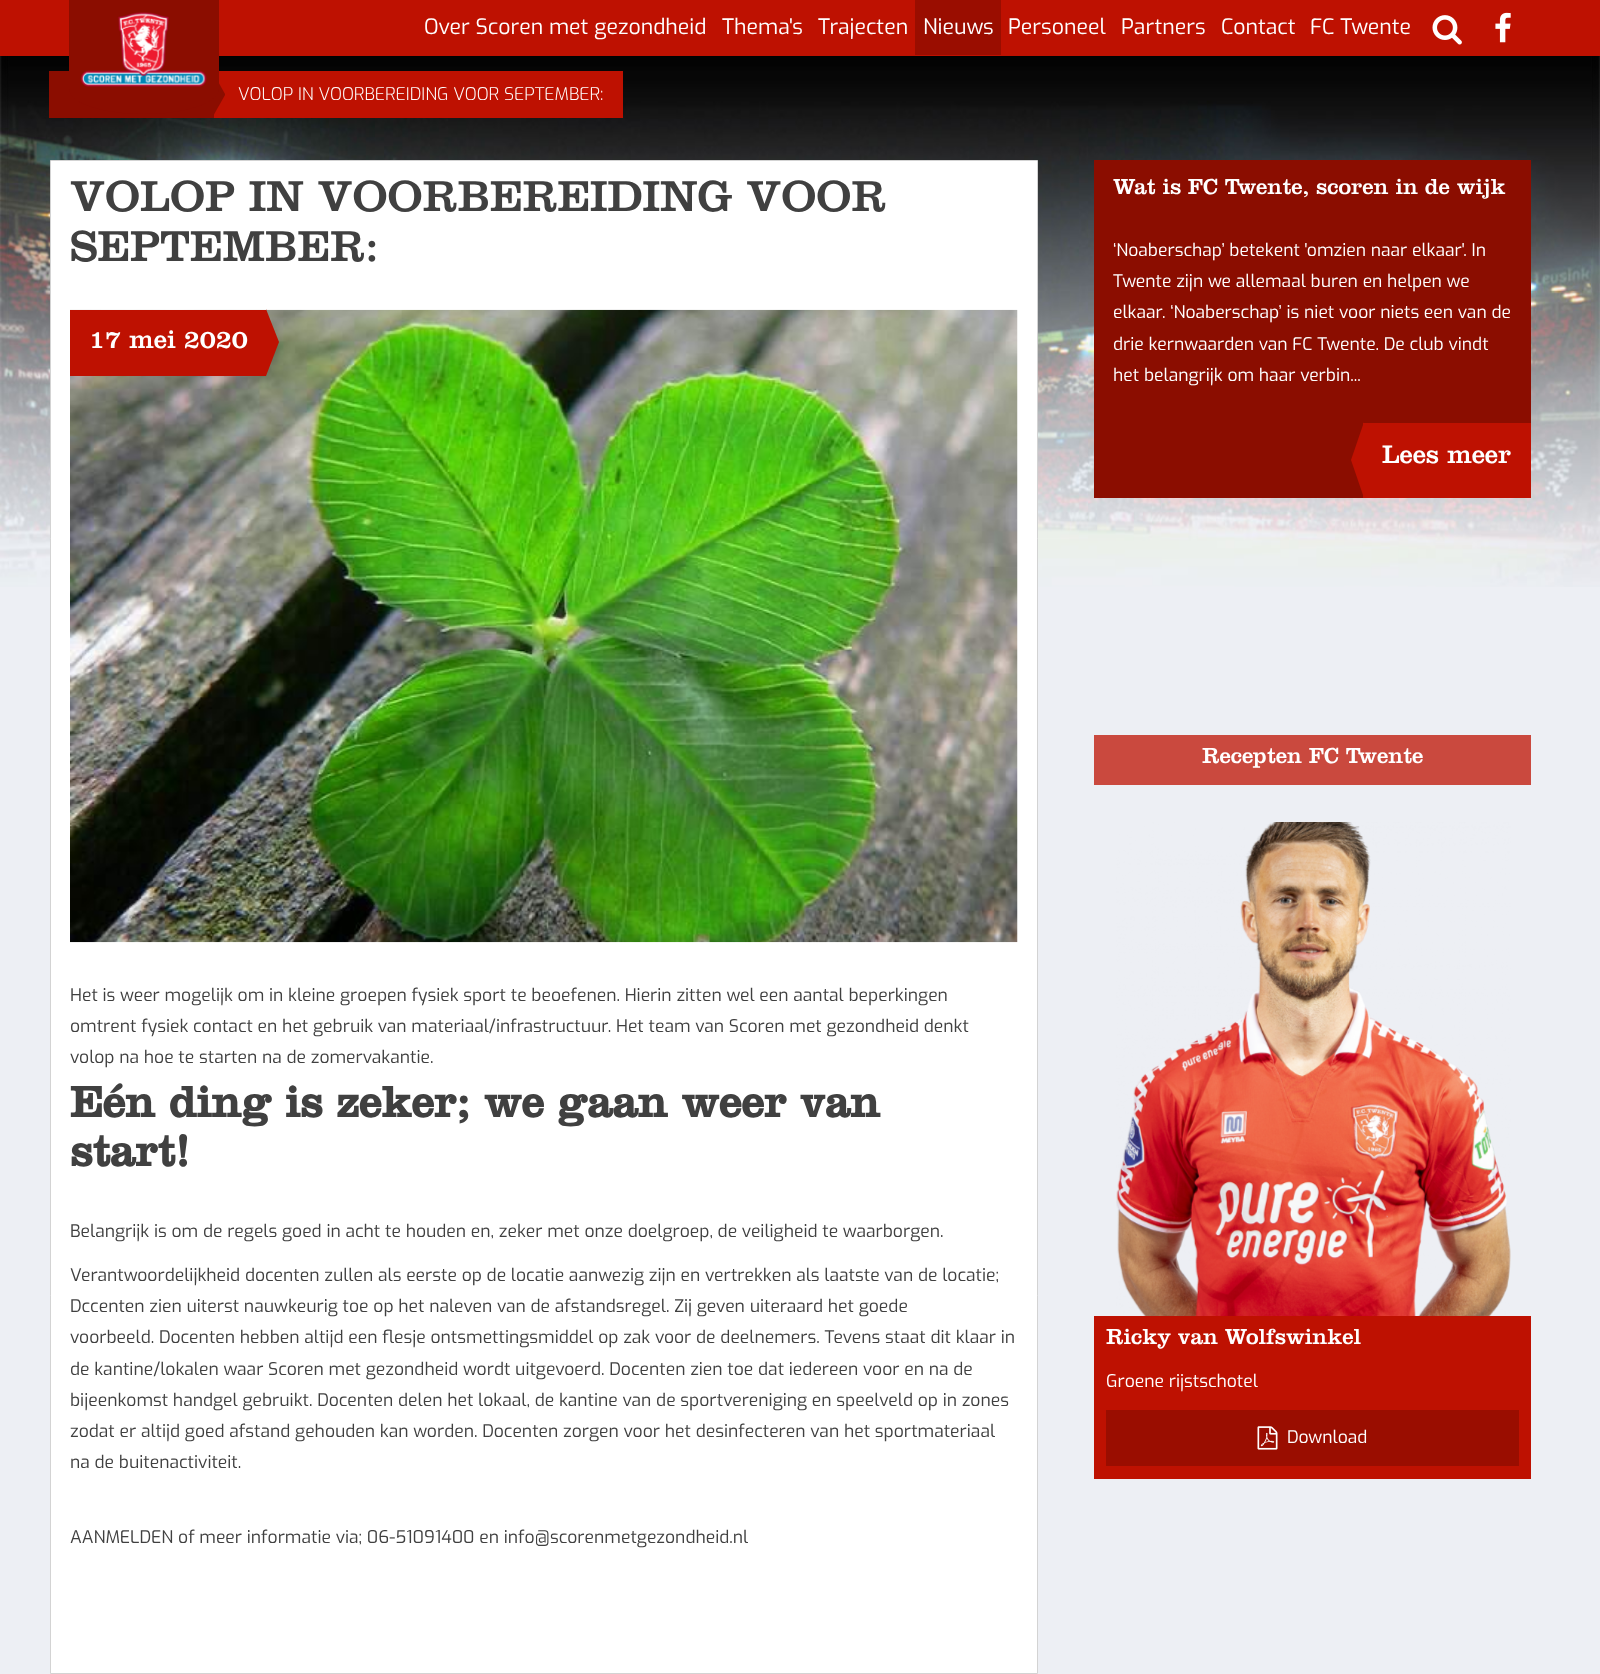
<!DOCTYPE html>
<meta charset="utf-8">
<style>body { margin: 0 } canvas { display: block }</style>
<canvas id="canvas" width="1600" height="1674"></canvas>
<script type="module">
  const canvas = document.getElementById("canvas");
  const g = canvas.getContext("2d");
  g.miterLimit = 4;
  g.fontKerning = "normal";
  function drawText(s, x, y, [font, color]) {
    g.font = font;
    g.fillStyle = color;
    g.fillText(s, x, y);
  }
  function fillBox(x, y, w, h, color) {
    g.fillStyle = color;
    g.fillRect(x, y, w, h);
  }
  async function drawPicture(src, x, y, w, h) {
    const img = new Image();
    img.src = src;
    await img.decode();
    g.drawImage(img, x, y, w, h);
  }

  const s1 = ["21.25px Exo", "#FFFFFF"];
  const s2 = ["300 17.5px Exo", "#FFFFFF"];
  const s3 = ["45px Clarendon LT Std", "#404040"];
  const s4 = ["26.25px Clarendon LT Std", "#FFFFFF"];
  const s5 = ["17.5px Exo", "#404040"];
  const s6 = ["bold 45px Clarendon LT Std", "#404040"];
  const s7 = ["22.5px Clarendon LT Std", "#FFFFFF"];
  const s8 = ["17.5px Exo", "#FFFFFF"];

  fillBox(0, 0, 1600, 1674, "#EDEFF4");
  await drawPicture("pic1.png", 0, 56, 1600, 531);
  fillBox(0, 0, 1600, 56, "#BE1101");
  fillBox(69, 0, 150, 64, "#8B0D00");
  fillBox(49, 71, 65, 47, "#8B0D00");
  fillBox(114, 99, 100, 19, "#8B0D00");
  fillBox(214, 71, 409, 47, "#BE1101");
  g.fillStyle = "#8B0D00";
  g.beginPath();
  g.moveTo(212, 118);
  g.lineTo(212, 71);
  g.lineTo(225, 94);
  g.lineTo(225, 95);
  g.closePath();
  g.fill();
  g.beginPath();
  g.moveTo(69, 64);
  g.lineTo(219, 64);
  g.lineTo(219, 89);
  g.bezierCurveTo(219, 103, 185, 114, 144, 114);
  g.bezierCurveTo(102, 114, 69, 103, 69, 89);
  g.closePath();
  g.fill();
  await drawPicture("pic2.png", 80, 12, 127, 75);
  drawText("Over Scoren met gezondheid", 424, 34, s1);
  drawText("Thema's", 722, 34, s1);
  drawText("Trajecten", 818, 34, s1);
  fillBox(915, 0, 86, 55, "#9A0D00");
  drawText("Nieuws", 923, 34, s1);
  drawText("Personeel", 1008, 34, s1);
  drawText("Partners", 1121, 34, s1);
  drawText("Contact", 1221, 34, s1);
  drawText("FC Twente", 1310, 34, s1);
  await drawPicture("pic3.png", 1432, 15, 30, 30);
  await drawPicture("pic4.png", 1495, 12, 16, 31);
  drawText("VOLOP IN VOORBEREIDING VOOR SEPTEMBER:", 238, 100, s2);
  g.beginPath();
  g.rect(50.5, 160.5, 987, 1513);
  g.fill();
  g.strokeStyle = "#D3D3D3";
  g.stroke();
  drawText("VOLOP IN VOORBEREIDING VOOR", 70, 211, s3);
  drawText("SEPTEMBER:", 70, 261, s3);
  await drawPicture("pic5.png", 70, 309, 948, 634);
  fillBox(70, 310, 196, 66, "#BE1101");
  drawText("17 mei 2020", 89, 348, s4);
  g.fillStyle = "#BE1101";
  g.beginPath();
  g.moveTo(266, 376);
  g.lineTo(266, 309);
  g.lineTo(279, 342);
  g.closePath();
  g.fill();
  drawText("Het is weer mogelijk om in kleine groepen fysiek sport te beoefenen. Hierin zitten wel een aantal beperkingen", 70, 1001, s5);
  drawText("omtrent fysiek contact en het gebruik van materiaal/infrastructuur. Het team van Scoren met gezondheid denkt", 70, 1032, s5);
  drawText("volop na hoe te starten na de zomervakantie.", 70, 1063, s5);
  drawText("Eén ding is zeker; we gaan weer van", 70, 1117, s6);
  drawText("start!", 70, 1166, s6);
  drawText("Belangrijk is om de regels goed in acht te houden en, zeker met onze doelgroep, de veiligheid te waarborgen.", 70, 1237, s5);
  drawText("Verantwoordelijkheid docenten zullen als eerste op de locatie aanwezig zijn en vertrekken als laatste van de locatie;", 70, 1281, s5);
  drawText("Dccenten zien uiterst nauwkeurig toe op het naleven van de afstandsregel. Zij geven uiteraard het goede", 70, 1312, s5);
  drawText("voorbeeld. Docenten hebben altijd een flesje ontsmettingsmiddel op zak voor de deelnemers. Tevens staat dit klaar in", 70, 1343, s5);
  drawText("de kantine/lokalen waar Scoren met gezondheid wordt uitgevoerd. Docenten zien toe dat iedereen voor en na de", 70, 1375, s5);
  drawText("bijeenkomst handgel gebruikt. Docenten delen het lokaal, de kantine van de sportvereniging en speelveld op in zones", 70, 1406, s5);
  drawText("zodat er altijd goed afstand gehouden kan worden. Docenten zorgen voor het desinfecteren van het sportmateriaal", 70, 1437, s5);
  drawText("na de buitenactiviteit.", 70, 1468, s5);
  drawText("AANMELDEN of meer informatie via; 06-51091400 en info@scorenmetgezondheid.nl", 70, 1543, s5);
  fillBox(1094, 160, 437, 338, "#8B0D00");
  drawText("Wat is FC Twente, scoren in de wijk", 1113, 194, s7);
  drawText("‘Noaberschap’ betekent 'omzien naar elkaar'. In", 1113, 256, s8);
  drawText("Twente zijn we allemaal buren en helpen we", 1113, 287, s8);
  drawText("elkaar. ‘Noaberschap’ is niet voor niets een van de", 1113, 318, s8);
  drawText("drie kernwaarden van FC Twente. De club vindt", 1113, 350, s8);
  drawText("het belangrijk om haar verbin...", 1113, 381, s8);
  fillBox(1363, 423, 168, 75, "#BE1101");
  g.beginPath();
  g.moveTo(1364, 422);
  g.lineTo(1364, 498);
  g.lineTo(1351, 460);
  g.closePath();
  g.fill();
  drawText("Lees meer", 1382, 463, s4);
  fillBox(1094, 735, 437, 50, "#CA493E");
  drawText("Recepten FC Twente", 1202, 763, s7);
  await drawPicture("pic6.png", 1116, 822, 395, 494);
  fillBox(1094, 1316, 437, 163, "#BE1101");
  drawText("Ricky van Wolfswinkel", 1106, 1344, s7);
  drawText("Groene rijstschotel", 1106, 1387, s8);
  fillBox(1106, 1410, 413, 56, "#9A0D00");
  await drawPicture("pic7.png", 1257, 1426, 21, 24);
  drawText("Download", 1287, 1443, s8);
</script>
